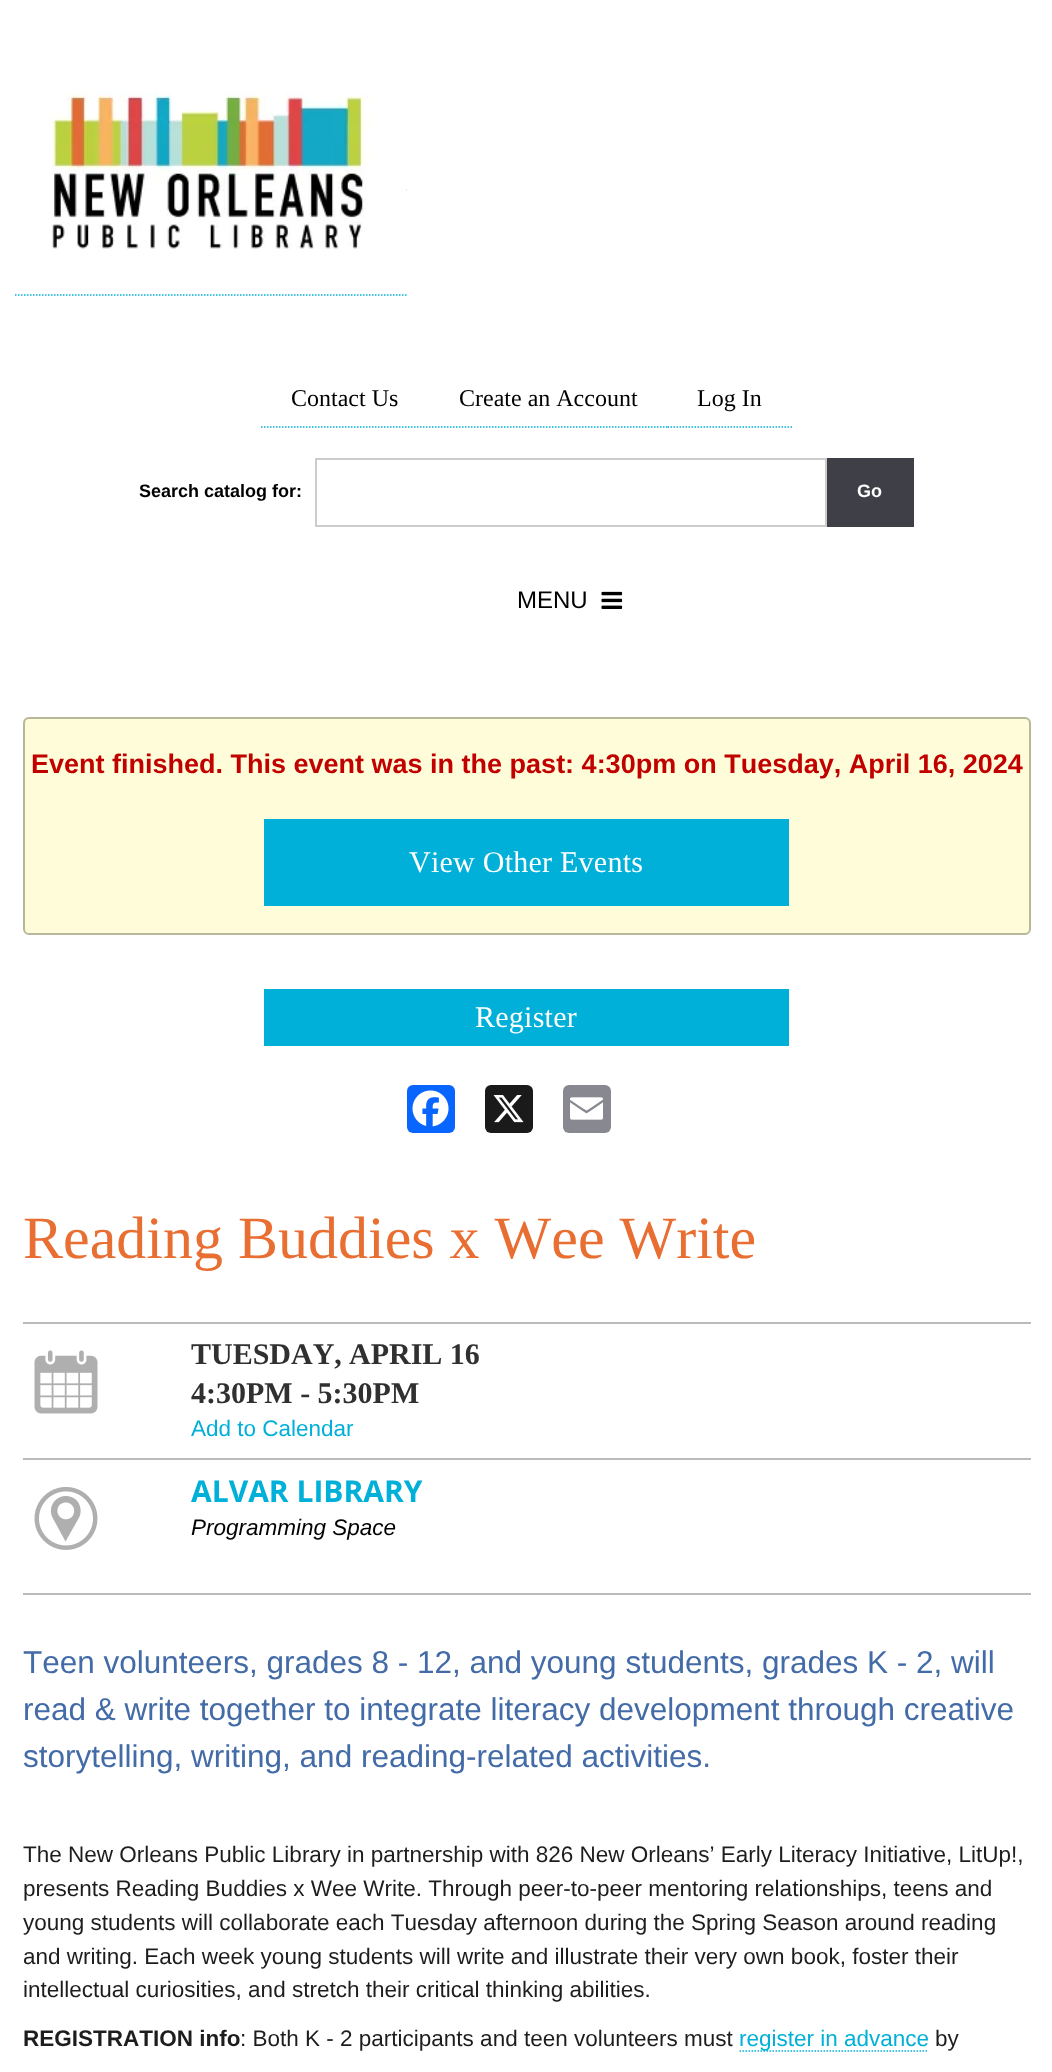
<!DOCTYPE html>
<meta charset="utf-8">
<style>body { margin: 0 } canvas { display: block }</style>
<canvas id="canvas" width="1052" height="2072"></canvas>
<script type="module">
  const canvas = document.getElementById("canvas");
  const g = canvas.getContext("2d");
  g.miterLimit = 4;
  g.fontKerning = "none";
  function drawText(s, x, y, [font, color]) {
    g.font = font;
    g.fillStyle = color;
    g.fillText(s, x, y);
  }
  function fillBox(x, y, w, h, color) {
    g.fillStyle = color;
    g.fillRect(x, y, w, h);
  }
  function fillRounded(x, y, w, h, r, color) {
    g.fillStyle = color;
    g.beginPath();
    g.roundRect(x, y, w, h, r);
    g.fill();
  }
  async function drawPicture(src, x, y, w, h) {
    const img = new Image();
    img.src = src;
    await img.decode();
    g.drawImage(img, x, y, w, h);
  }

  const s1 = ["24px Liberation Serif", "#000000"];
  const s2 = ["bold 18px Liberation Sans", "#000000"];
  const s3 = ["bold 18px Liberation Sans", "#FFFFFF"];
  const s4 = ["24px Liberation Sans", "#000000"];
  const s5 = ["bold 27px Liberation Sans", "#C10000"];
  const s6 = ["30px Liberation Serif", "#FFFFFF"];
  const s7 = ["60px Liberation Serif", "#E86E32"];
  const s8 = ["bold 30px Liberation Serif", "#303030"];
  const s9 = ["22.5px Liberation Sans", "#00B0D8"];
  const s10 = ["bold 30px Open Sans", "#00B0D8"];
  const s11 = ["italic 22.5px Liberation Sans", "#000000"];
  const s12 = ["31.5px Liberation Sans", "#436BA7"];
  const s13 = ["22.5px Liberation Sans", "#1D1D1D"];
  const s14 = ["bold 22.5px Liberation Sans", "#1D1D1D"];

  fillBox(0, 0, 1052, 2072, "#FFFFFF");
  g.beginPath();
  g.moveTo(15, 190);
  g.lineTo(406.5, 190);
  g.strokeStyle = "#00B0D8";
  g.lineWidth = 1.5;
  g.setLineDash([1.5, 1.5]);
  g.stroke();
  await drawPicture("pic1.png", 15, 91, 392, 158);
  g.beginPath();
  g.moveTo(15, 295);
  g.lineTo(406.5, 295);
  g.stroke();
  g.beginPath();
  g.moveTo(261, 427);
  g.lineTo(429, 427);
  g.stroke();
  drawText("Contact Us", 291, 406, s1);
  g.beginPath();
  g.moveTo(429, 427);
  g.lineTo(667.5, 427);
  g.stroke();
  drawText("Create an Account", 459, 406, s1);
  g.beginPath();
  g.moveTo(667.5, 427);
  g.lineTo(792, 427);
  g.stroke();
  drawText("Log In", 697, 406, s1);
  drawText("Search catalog for:", 139, 497, s2);
  g.strokeStyle = "#CCCCCC";
  g.lineWidth = 2;
  g.setLineDash([]);
  g.strokeRect(316, 459, 510, 67);
  fillBox(827, 458, 87, 69, "#3F4047");
  drawText("Go", 857, 497, s3);
  drawText("MENU", 517, 608, s4);
  await drawPicture("pic2.png", 601, 591, 22, 18);
  g.fillStyle = "#FFFDD9";
  g.beginPath();
  g.roundRect(24, 718, 1006, 216, 5);
  g.fill();
  g.strokeStyle = "#B8B79A";
  g.stroke();
  drawText("Event finished. This event was in the past: 4:30pm on Tuesday, April 16, 2024", 31, 773, s5);
  fillBox(264, 819, 525, 87, "#00B0D8");
  g.letterSpacing = "0.25px";
  drawText("View Other Events", 409, 872, s6);
  fillBox(264, 989, 525, 57, "#00B0D8");
  drawText("Register", 475, 1027, s6);
  fillRounded(407, 1085, 48, 48, 6, "#0866FF");
  await drawPicture("pic3.png", 412, 1090, 37, 37);
  fillRounded(485, 1085, 48, 48, 6, "#1A1A1A");
  await drawPicture("pic4.png", 493, 1095, 31, 28);
  fillRounded(563, 1085, 48, 48, 6, "#888990");
  await drawPicture("pic5.png", 570, 1097, 33, 23);
  g.letterSpacing = "0px";
  drawText("Reading Buddies x Wee Write", 23, 1258, s7);
  fillBox(23, 1322, 1008, 2, "#BBBBBB");
  await drawPicture("pic6.png", 34, 1350, 64, 64);
  drawText("TUESDAY,", 191, 1364, s8);
  drawText("APRIL 16", 349, 1364, s8);
  drawText("4:30PM - 5:30PM", 191, 1403, s8);
  drawText("Add to Calendar", 191, 1436, s9);
  fillBox(23, 1458, 1008, 2, "#BBBBBB");
  await drawPicture("pic7.png", 34, 1487, 64, 63);
  drawText("ALVAR LIBRARY", 191, 1502, s10);
  drawText("Programming Space", 191, 1535, s11);
  fillBox(23, 1593, 1008, 2, "#BBBBBB");
  drawText("Teen volunteers, grades 8 - 12, and young students, grades K - 2, will", 23, 1673, s12);
  drawText("read & write together to integrate literacy development through creative", 23, 1720, s12);
  drawText("storytelling, writing, and reading-related activities.", 23, 1767, s12);
  drawText("The New Orleans Public Library in partnership with 826 New Orleans’ Early Literacy Initiative, LitUp!,", 23, 1862, s13);
  drawText("presents Reading Buddies x Wee Write. Through peer-to-peer mentoring relationships, teens and", 23, 1896, s13);
  drawText("young students will collaborate each Tuesday afternoon during the Spring Season around reading", 23, 1930, s13);
  drawText("and writing. Each week young students will write and illustrate their very own book, foster their", 23, 1964, s13);
  drawText("intellectual curiosities, and stretch their critical thinking abilities.", 23, 1997, s13);
  drawText("REGISTRATION info", 23, 2046, s14);
  drawText(": Both K - 2 participants and teen volunteers must", 240, 2046, s13);
  g.beginPath();
  g.moveTo(739.5, 2051);
  g.lineTo(928.5, 2051);
  g.strokeStyle = "#00B0D8";
  g.lineWidth = 1.5;
  g.setLineDash([1.5, 1.5]);
  g.stroke();
  drawText("register in advance", 739, 2046, s9);
  drawText("by", 935, 2046, s13);
</script>
